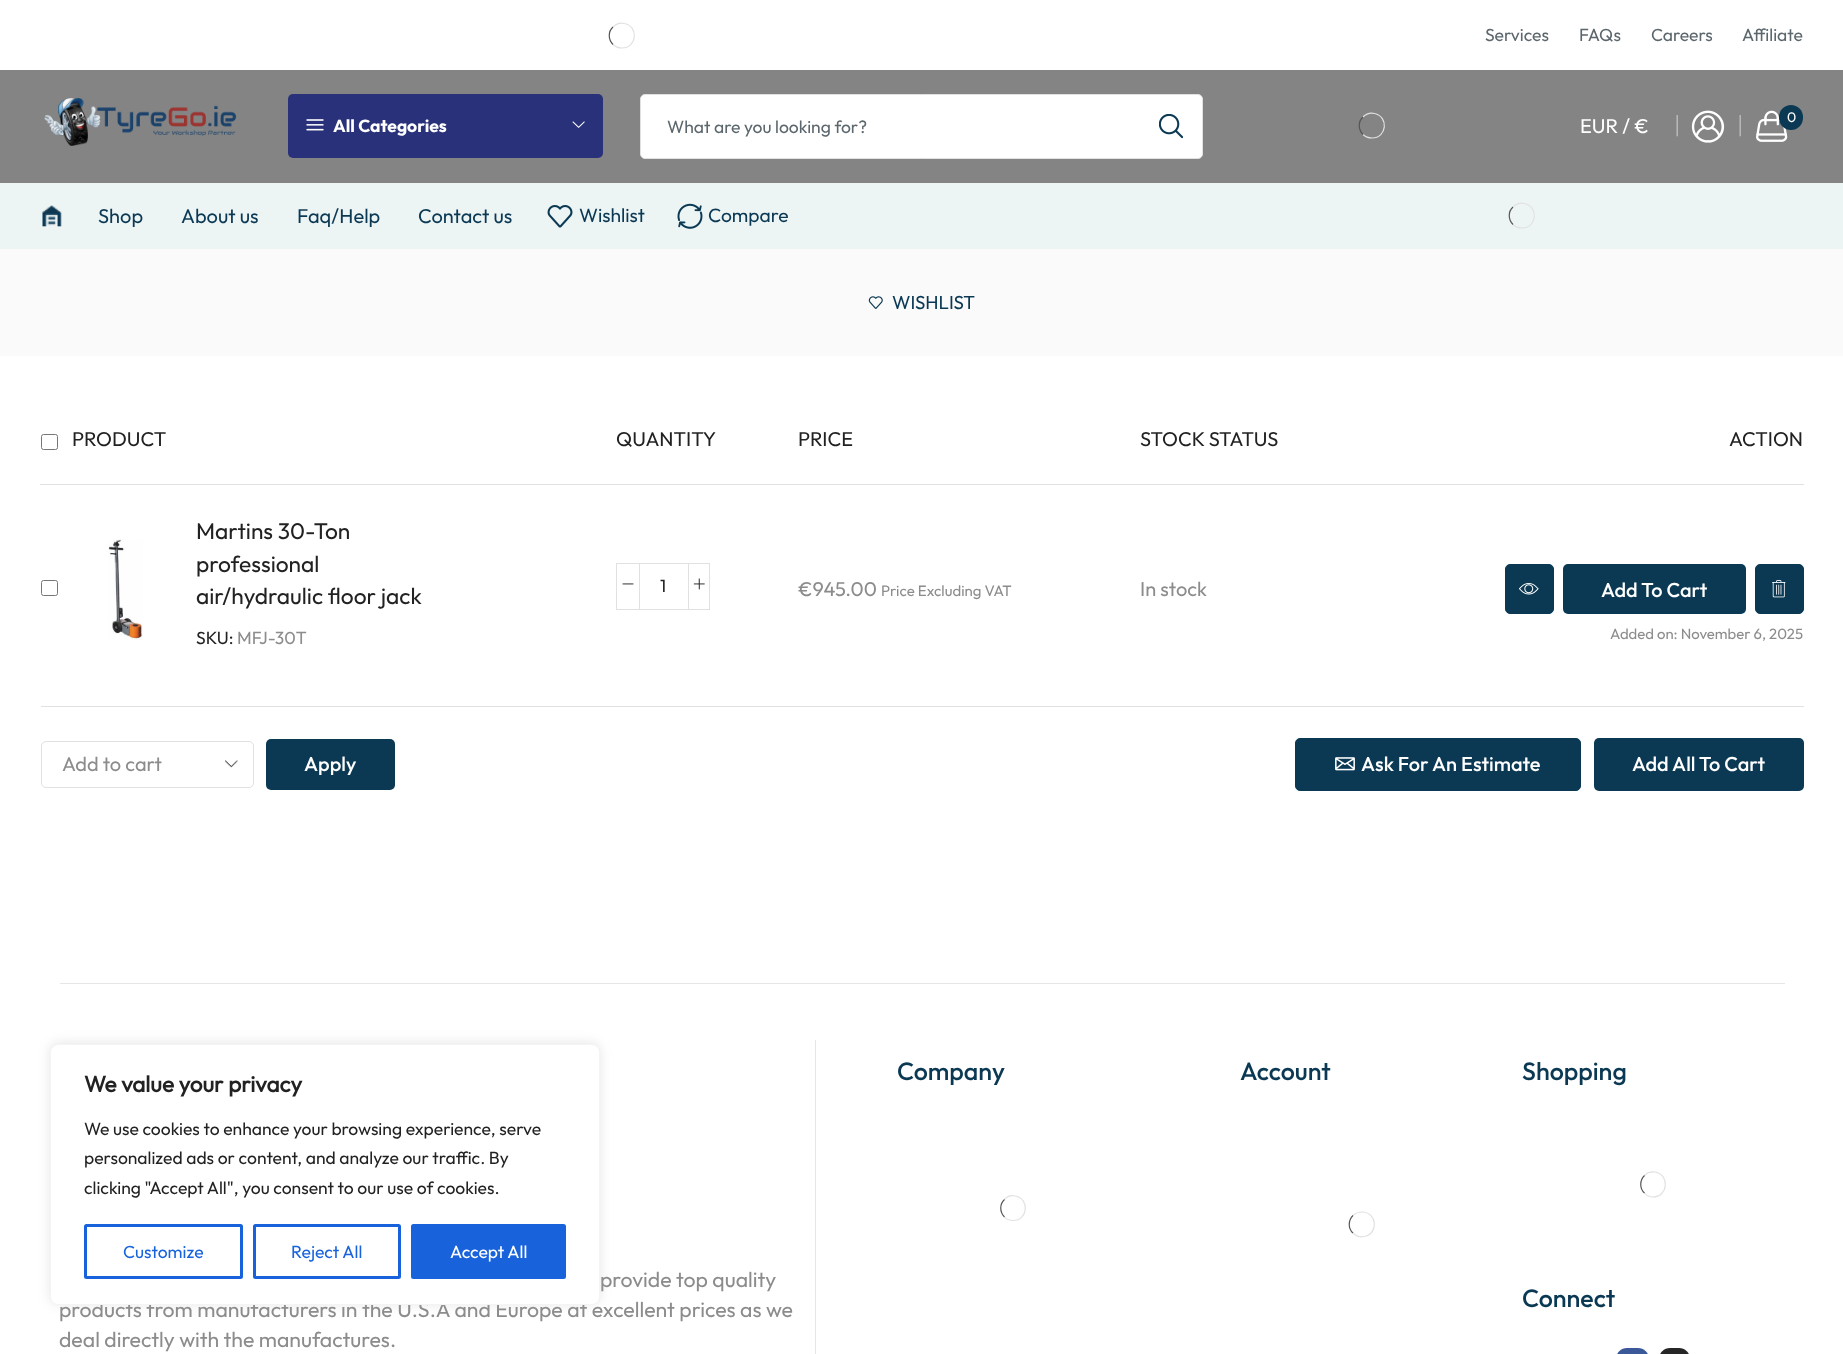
<!DOCTYPE html>
<meta charset="utf-8">
<style>body { margin: 0 } canvas { display: block }</style>
<canvas id="canvas" width="1843" height="1354"></canvas>
<script type="module">
  const canvas = document.getElementById("canvas");
  const g = canvas.getContext("2d");
  g.miterLimit = 4;
  g.fontKerning = "normal";
  function drawText(s, x, y, [font, color]) {
    g.font = font;
    g.fillStyle = color;
    g.fillText(s, x, y);
  }
  function fillBox(x, y, w, h, color) {
    g.fillStyle = color;
    g.fillRect(x, y, w, h);
  }
  function fillRounded(x, y, w, h, r, color) {
    g.fillStyle = color;
    g.beginPath();
    g.roundRect(x, y, w, h, r);
    g.fill();
  }
  async function drawPicture(src, x, y, w, h) {
    const img = new Image();
    img.src = src;
    await img.decode();
    g.drawImage(img, x, y, w, h);
  }

  const s1 = ["17.5px Outfit", "#5C676D"];
  const s2 = ["bold 17.5px Outfit", "#FFFFFF"];
  const s3 = ["17.5px 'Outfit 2'", "#5C676D"];
  const s4 = ["20px 'Outfit 2'", "#FFFFFF"];
  const s5 = ["17.5px Liberation Serif", "#C2C2C2"];
  const s6 = ["14px 'Outfit 2'", "#FFFFFF"];
  const s7 = ["20px 'Outfit 2'", "#0B3954"];
  const s8 = ["19.25px 'Outfit 2'", "#0B3954"];
  const s9 = ["18.75px 'Outfit 2'", "#0B3954"];
  const s10 = ["20px 'Outfit 2'", "#222222"];
  const s11 = ["22.75px 'Outfit 2'", "#222222"];
  const s12 = ["17.5px 'Outfit 2'", "#222222"];
  const s13 = ["17.5px 'Outfit 2'", "#8C8C8C"];
  const s14 = ["20px 'Outfit 2'", "#8C8C8C"];
  const s15 = ["15px 'Outfit 2'", "#8C8C8C"];
  const s16 = ["500 20px 'Outfit 2'", "#FFFFFF"];
  const s17 = ["14.9px 'Outfit 2'", "#8C8C8C"];
  const s18 = ["21.25px Outfit", "#8C8C8C"];
  const s19 = ["500 25px Outfit", "#0B3954"];
  const s20 = ["bold 22.5px 'Outfit 2'", "#222222"];
  const s21 = ["17.5px 'Outfit 2'", "#1863DC"];
  const s22 = ["17.5px 'Outfit 2'", "#FFFFFF"];

  fillBox(0, 0, 1843, 1354, "#FFFFFF");
  g.beginPath();
  g.moveTo(613, 27);
  g.bezierCurveTo(616, 24, 620.5, 22.5, 624.5, 23.5);
  g.bezierCurveTo(639, 26.5, 637, 48, 622, 48);
  g.bezierCurveTo(618.5, 48, 615.5, 47, 613, 44.5);
  g.strokeStyle = "#E1E1E1";
  g.lineWidth = 1.2;
  g.stroke();
  g.beginPath();
  g.moveTo(613, 44.5);
  g.bezierCurveTo(608, 39.5, 608, 31.5, 613, 27);
  g.strokeStyle = "#555555";
  g.stroke();
  drawText("Services", 1485, 41, s1);
  drawText("FAQs", 1579, 41, s1);
  drawText("Careers", 1651, 41, s1);
  drawText("Affiliate", 1742, 41, s1);
  fillBox(0, 70, 1843, 113, "#848484");
  await drawPicture("pic1.png", 44, 98, 193, 48);
  fillRounded(288, 94, 315, 64, 5, "#283179");
  await drawPicture("pic2.png", 306, 119, 18, 12);
  drawText("All Categories", 333, 132, s2);
  await drawPicture("pic3.png", 572, 121, 13, 7);
  g.beginPath();
  g.roundRect(640.5, 94.5, 562, 64, 4.5);
  g.fill();
  g.strokeStyle = "#E1E1E1";
  g.lineWidth = 1;
  g.stroke();
  drawText("What are you looking for?", 667, 133, s3);
  await drawPicture("pic4.png", 1159, 114, 24, 25);
  g.beginPath();
  g.moveTo(1363, 117);
  g.bezierCurveTo(1366, 114, 1370.5, 112.5, 1374.5, 113.5);
  g.bezierCurveTo(1389, 116.5, 1387, 138, 1372, 138);
  g.bezierCurveTo(1368.5, 138, 1365.5, 137, 1363, 134.5);
  g.lineWidth = 1.2;
  g.stroke();
  g.beginPath();
  g.moveTo(1363, 134.5);
  g.bezierCurveTo(1358, 129.5, 1358, 121.5, 1363, 117);
  g.strokeStyle = "#555555";
  g.stroke();
  drawText("EUR / €", 1580, 133, s4);
  drawText("│", 1671, 131, s5);
  await drawPicture("pic5.png", 1691, 110, 34, 33);
  drawText("│", 1734, 131, s5);
  await drawPicture("pic6.png", 1756, 110, 32, 32);
  fillRounded(1779, 105, 24, 25, 12, "#0B3954");
  drawText("0", 1787, 122, s6);
  fillBox(0, 183, 1843, 66, "#EDF4F4");
  await drawPicture("pic7.png", 42, 205, 20, 22);
  drawText("Shop", 98, 223, s7);
  drawText("About us", 181, 223, s7);
  drawText("Faq/Help", 297, 223, s7);
  drawText("Contact us", 418, 223, s7);
  await drawPicture("pic8.png", 547, 205, 26, 23);
  drawText("Wishlist", 579, 222, s8);
  await drawPicture("pic9.png", 677, 203, 26, 26);
  drawText("Compare", 708, 222, s8);
  g.beginPath();
  g.moveTo(1513, 207);
  g.bezierCurveTo(1516, 204, 1520.5, 202.5, 1524.5, 203.5);
  g.bezierCurveTo(1539, 206.5, 1537, 228, 1522, 228);
  g.bezierCurveTo(1518.5, 228, 1515.5, 227, 1513, 224.5);
  g.strokeStyle = "#E1E1E1";
  g.stroke();
  g.beginPath();
  g.moveTo(1513, 224.5);
  g.bezierCurveTo(1508, 219.5, 1508, 211.5, 1513, 207);
  g.strokeStyle = "#555555";
  g.stroke();
  fillBox(0, 249, 1843, 107, "#FAFAFA");
  await drawPicture("pic10.png", 868, 296, 15, 13);
  drawText("WISHLIST", 892, 309, s9);
  fillBox(40, 484, 1764, 1, "#E1E1E1");
  g.beginPath();
  g.roundRect(41.5, 434.5, 16, 15, 2);
  g.strokeStyle = "#767676";
  g.lineWidth = 1;
  g.stroke();
  drawText("PRODUCT", 72, 446, s10);
  drawText("QUANTITY", 616, 446, s10);
  drawText("PRICE", 798, 446, s10);
  drawText("STOCK STATUS", 1140, 446, s10);
  drawText("ACTION", 1729, 446, s10);
  g.beginPath();
  g.roundRect(41.5, 580.5, 16, 15, 2);
  g.stroke();
  await drawPicture("pic11.png", 108, 539, 35, 101);
  drawText("Martins 30-Ton", 196, 539, s11);
  drawText("professional", 196, 572, s11);
  drawText("air/hydraulic floor jack", 196, 604, s11);
  drawText("SKU:", 196, 644, s12);
  drawText("MFJ-30T", 237, 644, s13);
  g.strokeStyle = "#E1E1E1";
  g.strokeRect(616.5, 563.5, 23, 46);
  await drawPicture("pic12.png", 622, 583, 12, 2);
  fillBox(640, 563, 48, 1, "#E1E1E1");
  fillBox(640, 609, 48, 1, "#E1E1E1");
  drawText("1", 660, 592, s12);
  g.strokeRect(688.5, 563.5, 21, 46);
  await drawPicture("pic13.png", 693, 578, 12, 12);
  drawText("€945.00", 798, 596, s14);
  drawText("Price Excluding VAT", 881, 596, s15);
  drawText("In stock", 1140, 596, s14);
  g.fillStyle = "#0B3954";
  g.beginPath();
  g.roundRect(1505.5, 564.5, 48, 49, 4.5);
  g.fill();
  g.strokeStyle = "#0B3954";
  g.stroke();
  await drawPicture("pic14.png", 1519, 583, 20, 12);
  fillRounded(1563, 564, 183, 50, 5, "#0B3954");
  drawText("Add To Cart", 1601, 597, s16);
  g.fillStyle = "#0B3954";
  g.beginPath();
  g.roundRect(1755.5, 564.5, 48, 49, 4.5);
  g.fill();
  g.stroke();
  await drawPicture("pic15.png", 1772, 580, 14, 18);
  drawText("Added on: November 6, 2025", 1610, 639, s17);
  fillBox(41, 706, 1763, 1, "#E1E1E1");
  await drawPicture("pic16.png", 225, 760, 13, 8);
  g.beginPath();
  g.roundRect(41.5, 741.5, 212, 46, 4.5);
  g.strokeStyle = "#E1E1E1";
  g.stroke();
  drawText("Add to cart", 62, 771, s14);
  fillRounded(266, 739, 129, 51, 5, "#0B3954");
  drawText("Apply", 304, 771, s16);
  g.fillStyle = "#0B3954";
  g.beginPath();
  g.roundRect(1295.5, 738.5, 285, 52, 4.5);
  g.fill();
  g.strokeStyle = "#0B3954";
  g.stroke();
  await drawPicture("pic17.png", 1335, 757, 20, 14);
  drawText("Ask For An Estimate", 1361, 771, s16);
  fillRounded(1594, 738, 210, 53, 5, "#0B3954");
  drawText("Add All To Cart", 1632, 771, s16);
  fillBox(60, 983, 1725, 1, "#E6E6E6");
  fillBox(815, 1040, 1, 314, "#E6E6E6");
  drawText("provide top quality", 600, 1287, s18);
  drawText("products from manufacturers in the U.S.A and Europe at excellent prices as we", 59, 1317, s18);
  drawText("deal directly with the manufactures.", 59, 1347, s18);
  drawText("Company", 897, 1080, s19);
  g.beginPath();
  g.moveTo(1004.5, 1199.5);
  g.bezierCurveTo(1007, 1196.5, 1011.5, 1195, 1015.5, 1196);
  g.bezierCurveTo(1030, 1199, 1028, 1220.5, 1013, 1220.5);
  g.bezierCurveTo(1010, 1220.5, 1006.5, 1219.5, 1004.5, 1217);
  g.strokeStyle = "#E1E1E1";
  g.lineWidth = 1.2;
  g.stroke();
  g.beginPath();
  g.moveTo(1004.5, 1217);
  g.bezierCurveTo(999.5, 1212, 999.5, 1204, 1004.5, 1199.5);
  g.strokeStyle = "#555555";
  g.stroke();
  drawText("Account", 1240, 1080, s19);
  g.beginPath();
  g.moveTo(1353, 1215.5);
  g.bezierCurveTo(1355.5, 1213, 1358.5, 1212, 1362, 1212);
  g.bezierCurveTo(1377, 1212, 1379, 1233.5, 1364.5, 1236.5);
  g.bezierCurveTo(1360.5, 1237.5, 1356, 1236, 1353, 1233);
  g.strokeStyle = "#E1E1E1";
  g.stroke();
  g.beginPath();
  g.moveTo(1353, 1233);
  g.bezierCurveTo(1348, 1228.5, 1348, 1220.5, 1353, 1215.5);
  g.strokeStyle = "#555555";
  g.stroke();
  drawText("Shopping", 1522, 1080, s19);
  g.beginPath();
  g.moveTo(1644.5, 1175.5);
  g.bezierCurveTo(1647, 1172.5, 1651.5, 1171.5, 1655.5, 1172);
  g.bezierCurveTo(1670, 1175, 1668, 1197, 1653, 1197);
  g.bezierCurveTo(1650, 1197, 1646.5, 1195.5, 1644.5, 1193);
  g.strokeStyle = "#E1E1E1";
  g.stroke();
  g.beginPath();
  g.moveTo(1644.5, 1193);
  g.bezierCurveTo(1639.5, 1188.5, 1639.5, 1180.5, 1644.5, 1175.5);
  g.strokeStyle = "#555555";
  g.stroke();
  drawText("Connect", 1522, 1307, s19);
  fillRounded(1616, 1348, 33, 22, 16, "#3B5998");
  fillRounded(1659, 1348, 31, 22, 15.5, "#262626");
  g.fillStyle = "rgba(172, 171, 171, 0.3)";
  g.filter = "blur(6px)";
  g.beginPath();
  g.roundRect(50, 1043, 550, 261, 8);
  g.fill();
  g.filter = "none";
  g.fillStyle = "#FFFFFF";
  g.beginPath();
  g.roundRect(50.5, 1044.5, 549, 260, 7.5);
  g.fill();
  g.strokeStyle = "#F4F4F4";
  g.lineWidth = 1;
  g.stroke();
  drawText("We value your privacy", 84, 1092, s20);
  drawText("We use cookies to enhance your browsing experience, serve", 84, 1135, s12);
  drawText("personalized ads or content, and analyze our traffic. By", 84, 1164, s12);
  drawText("clicking \"Accept All\", you consent to our use of cookies.", 84, 1194, s12);
  g.beginPath();
  g.roundRect(85.5, 1225.5, 156, 52, 1);
  g.strokeStyle = "#1863DC";
  g.lineWidth = 3;
  g.stroke();
  drawText("Customize", 123, 1258, s21);
  g.beginPath();
  g.roundRect(254.5, 1225.5, 145, 52, 1);
  g.stroke();
  drawText("Reject All", 291, 1258, s21);
  g.beginPath();
  g.roundRect(412.5, 1225.5, 152, 52, 1);
  g.fill();
  g.stroke();
  drawText("Accept All", 450, 1258, s22);
</script>
